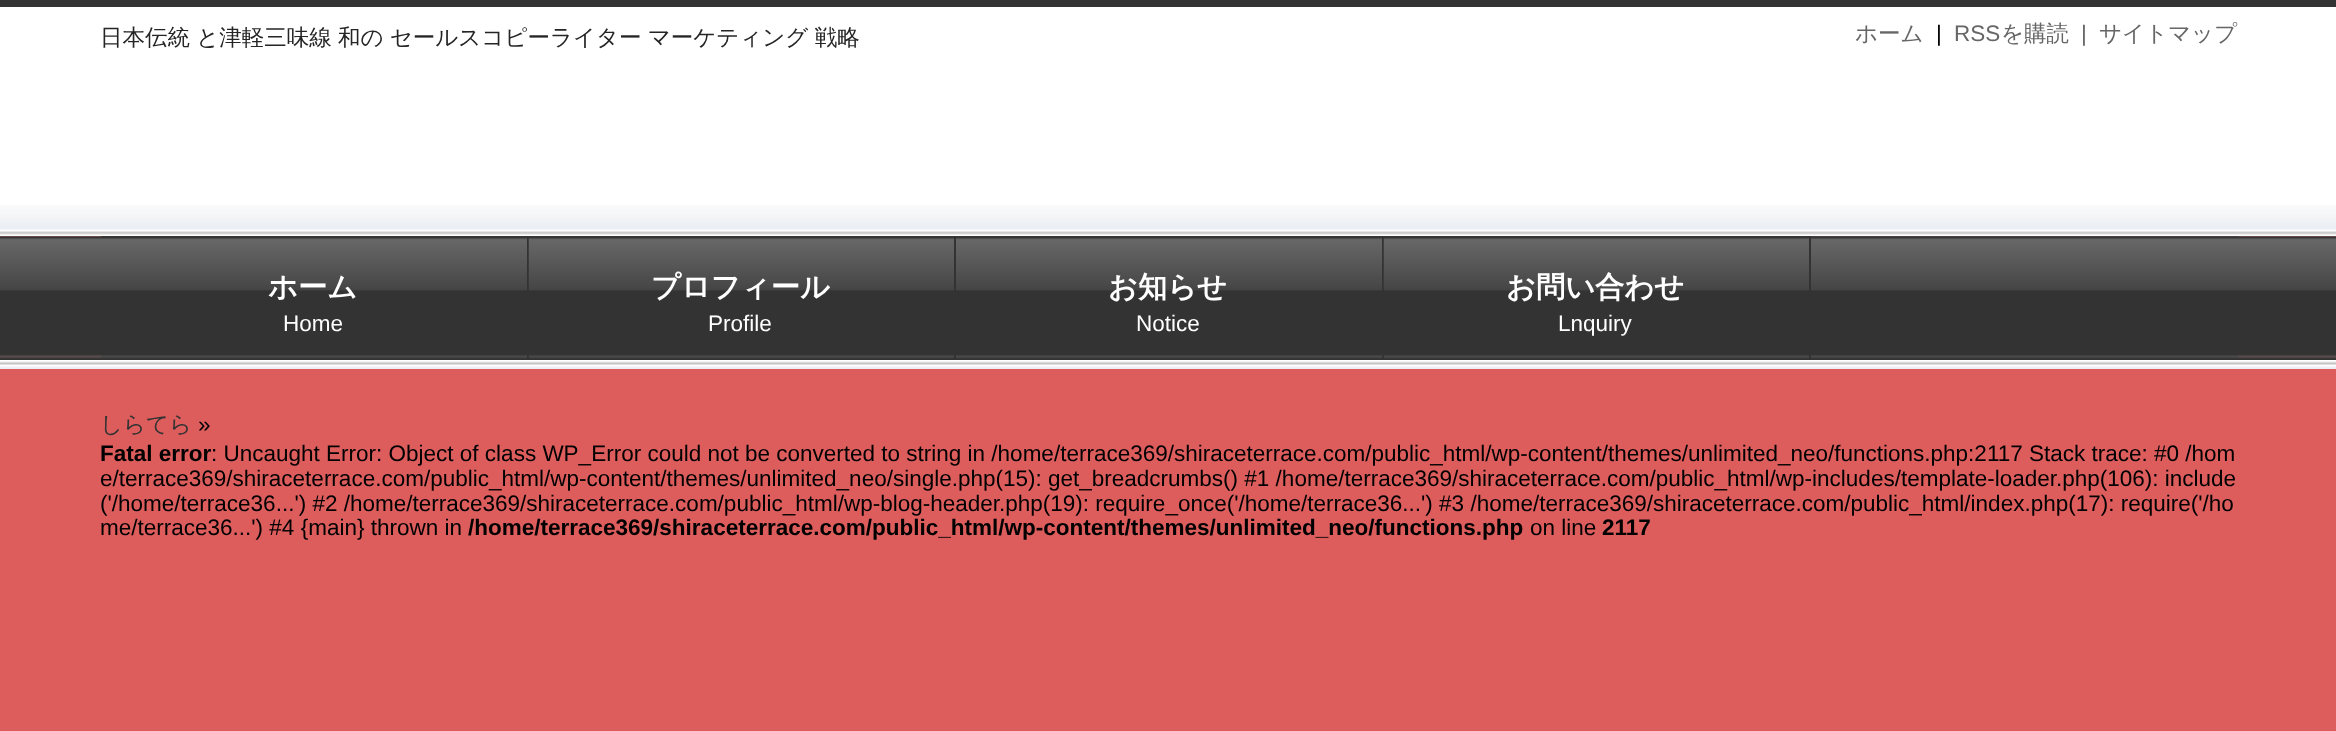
<!DOCTYPE html>
<meta charset="utf-8">
<style>body { margin: 0 } canvas { display: block }</style>
<canvas id="canvas" width="2336" height="731"></canvas>
<script type="module">
  const canvas = document.getElementById("canvas");
  const g = canvas.getContext("2d");
  g.miterLimit = 4;
  g.fontKerning = "normal";
  function drawText(s, x, y, [font, color]) {
    g.font = font;
    g.fillStyle = color;
    g.fillText(s, x, y);
  }
  function fillBox(x, y, w, h, color) {
    g.fillStyle = color;
    g.fillRect(x, y, w, h);
  }
  async function drawPicture(src, x, y, w, h) {
    const img = new Image();
    img.src = src;
    await img.decode();
    g.drawImage(img, x, y, w, h);
  }

  const s1 = ["500 22.5px WenQuanYi Zen Hei", "#252525"];
  const s2 = ["500 22.5px WenQuanYi Zen Hei", "#666666"];
  const s3 = ["22.5px Liberation Sans", "#000000"];
  const s4 = ["22.5px Liberation Sans", "#666666"];
  const s5 = ["bold 29.25px WenQuanYi Zen Hei", "#FFFFFF"];
  const s6 = ["22.5px Liberation Sans", "#FFFFFF"];
  const s7 = ["500 22.5px WenQuanYi Zen Hei", "#333333"];
  const s8 = ["bold 22.5px Liberation Sans", "#000000"];

  fillBox(0, 0, 2336, 731, "#DD5D5D");
  fillBox(0, 0, 2336, 7, "#333333");
  fillBox(0, 7, 2336, 198, "#FFFFFF");
  await drawPicture("pic2.png", 0, 236, 2336, 124);
  await drawPicture("pic3.png", 101, 236, 2138, 122);
  await drawPicture("pic1.png", 0, 205, 2336, 32);
  g.wordSpacing = "-0.5px";
  drawText("日本伝統 と津軽三味線", 100, 45, s1);
  drawText("和の セールスコピーライター マーケティング 戦略", 338, 45, s1);
  g.wordSpacing = "0px";
  drawText("ホーム", 1855, 41, s2);
  drawText("|", 1936, 41, s3);
  drawText("RSS", 1954, 41, s4);
  drawText("を購読", 2001, 41, s2);
  drawText("|", 2081, 41, s4);
  drawText("サイトマップ", 2099, 41, s2);
  await drawPicture("pic4.png", 101, 236, 426, 1);
  fillBox(527, 236, 2, 124, "#333333");
  drawText("ホーム", 268, 297, s5);
  drawText("Home", 283, 331, s6);
  await drawPicture("pic5.png", 528, 236, 426, 121);
  fillBox(954, 236, 2, 124, "#333333");
  drawText("プロフィール", 651, 297, s5);
  drawText("Profile", 708, 331, s6);
  await drawPicture("pic6.png", 956, 236, 426, 1);
  fillBox(1382, 236, 2, 124, "#333333");
  drawText("お知らせ", 1108, 297, s5);
  drawText("Notice", 1136, 331, s6);
  await drawPicture("pic5.png", 1383, 236, 426, 121);
  fillBox(1809, 236, 2, 124, "#333333");
  drawText("お問い合わせ", 1506, 297, s5);
  drawText("Lnquiry", 1558, 331, s6);
  await drawPicture("pic7.png", 0, 360, 2336, 9);
  drawText("しらてら", 100, 432, s7);
  drawText("»", 198, 432, s3);
  drawText("Fatal error", 100, 461, s8);
  drawText(": Uncaught Error: Object of class WP_Error could not be converted to string in /home/terrace369/shiraceterrace.com/public_html/wp-content/themes/unlimited_neo/functions.php:2117 Stack trace: #0 /hom", 211, 461, s3);
  drawText("e/terrace369/shiraceterrace.com/public_html/wp-content/themes/unlimited_neo/single.php(15): get_breadcrumbs() #1 /home/terrace369/shiraceterrace.com/public_html/wp-includes/template-loader.php(106): include", 100, 486, s3);
  drawText("('/home/terrace36...') #2 /home/terrace369/shiraceterrace.com/public_html/wp-blog-header.php(19): require_once('/home/terrace36...') #3 /home/terrace369/shiraceterrace.com/public_html/index.php(17): require('/ho", 100, 511, s3);
  drawText("me/terrace36...') #4 {main} thrown in", 100, 535, s3);
  drawText("/home/terrace369/shiraceterrace.com/public_html/wp-content/themes/unlimited_neo/functions.php", 468, 535, s8);
  drawText("on line", 1530, 535, s3);
  drawText("2117", 1602, 535, s8);
</script>
